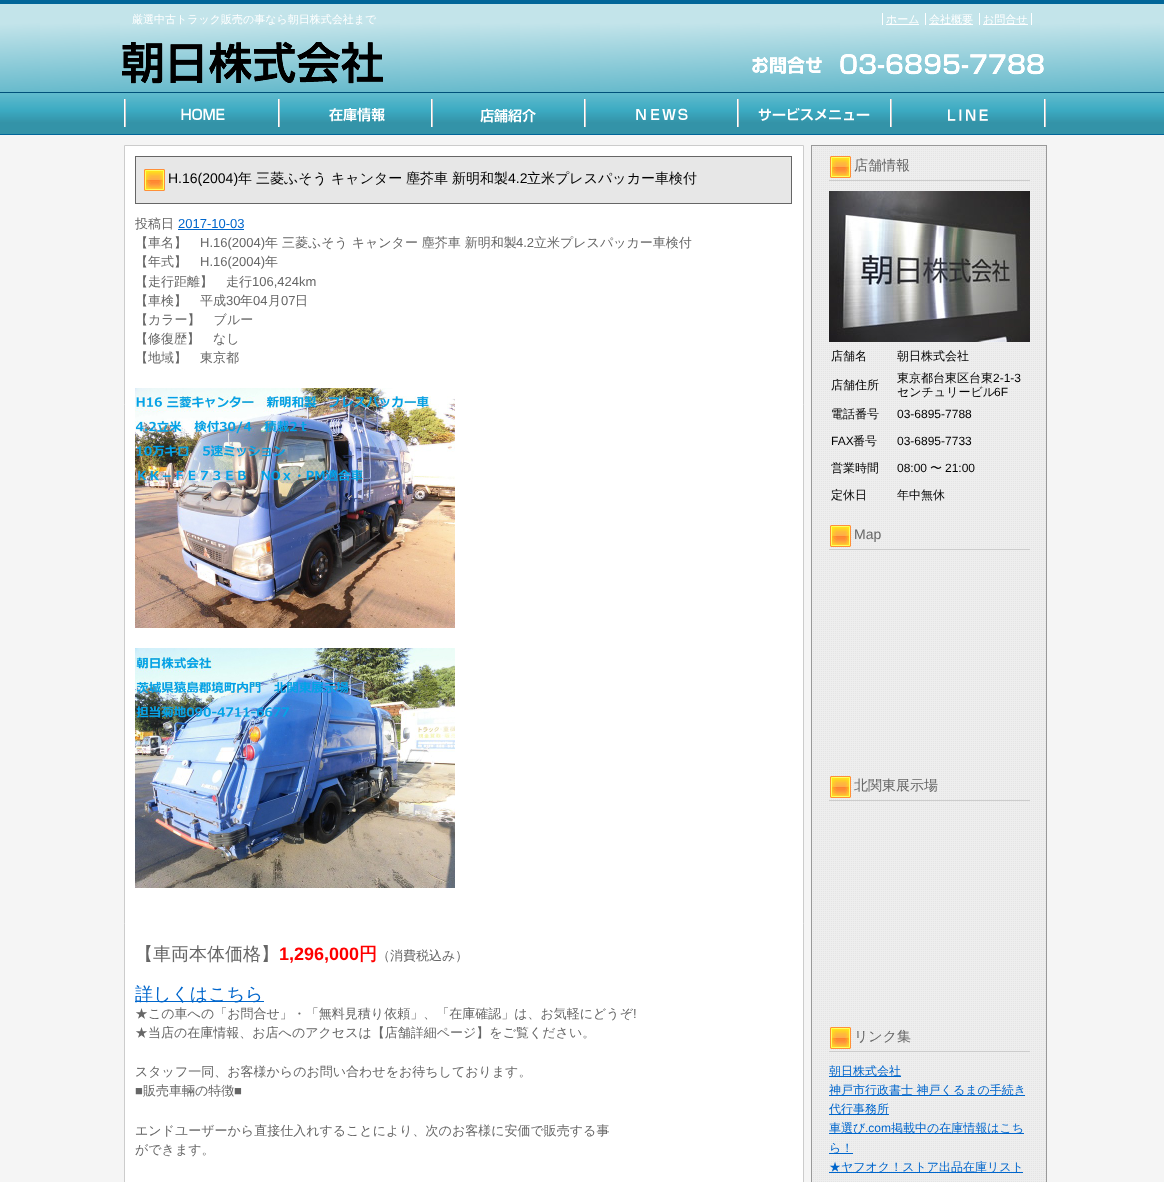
<!DOCTYPE html>
<meta charset="utf-8">
<style>body { margin: 0 } canvas { display: block }</style>
<canvas id="canvas" width="1164" height="1182"></canvas>
<script type="module">
  const canvas = document.getElementById("canvas");
  const g = canvas.getContext("2d");
  g.miterLimit = 4;
  g.fontKerning = "normal";
  function drawText(s, x, y, [font, color]) {
    g.font = font;
    g.fillStyle = color;
    g.fillText(s, x, y);
  }
  function fillBox(x, y, w, h, color) {
    g.fillStyle = color;
    g.fillRect(x, y, w, h);
  }
  async function drawPicture(src, x, y, w, h) {
    const img = new Image();
    img.src = src;
    await img.decode();
    g.drawImage(img, x, y, w, h);
  }

  const s1 = ["500 11px WenQuanYi Zen Hei", "#FFFFFF"];
  const s2 = ["14px Liberation Sans", "#000000"];
  const s3 = ["500 14px WenQuanYi Zen Hei", "#000000"];
  const s4 = ["500 13px WenQuanYi Zen Hei", "#666666"];
  const s5 = ["13px Liberation Sans", "#0066CC"];
  const s6 = ["13px Liberation Sans", "#666666"];
  const s7 = ["500 18px WenQuanYi Zen Hei", "#666666"];
  const s8 = ["bold 18px Liberation Sans", "#FF0000"];
  const s9 = ["bold 18px WenQuanYi Zen Hei", "#FF0000"];
  const s10 = ["500 18px WenQuanYi Zen Hei", "#0066CC"];
  const s11 = ["500 14px WenQuanYi Zen Hei", "#666666"];
  const s12 = ["500 12px WenQuanYi Zen Hei", "#000000"];
  const s13 = ["12px Liberation Sans", "#000000"];
  const s14 = ["14px Liberation Sans", "#666666"];
  const s15 = ["500 12px WenQuanYi Zen Hei", "#0066CC"];
  const s16 = ["12px Liberation Sans", "#0066CC"];

  fillBox(0, 0, 1164, 1182, "#F5F5F5");
  await drawPicture("pic1.png", 0, 0, 1164, 135);
  drawText("厳選中古トラック販売の事なら朝日株式会社まで", 132, 23, s1);
  fillBox(886, 24, 33, 1, "#FFFFFF");
  drawText("ホーム", 886, 23, s1);
  fillBox(882, 13, 1, 12, "#FFFFFF");
  fillBox(929, 24, 44, 1, "#FFFFFF");
  drawText("会社概要", 929, 23, s1);
  fillBox(925, 13, 1, 12, "#FFFFFF");
  fillBox(983, 24, 45, 1, "#FFFFFF");
  drawText("お問合せ", 983, 23, s1);
  fillBox(1031, 13, 1, 12, "#FFFFFF");
  fillBox(979, 13, 1, 12, "#FFFFFF");
  await drawPicture("pic2.png", 122, 41, 261, 43);
  await drawPicture("pic3.png", 752, 54, 292, 21);
  await drawPicture("pic4.png", 124, 99, 155, 28);
  await drawPicture("pic5.png", 279, 99, 154, 28);
  await drawPicture("pic6.png", 480, 99, 105, 28);
  await drawPicture("pic7.png", 585, 99, 153, 28);
  await drawPicture("pic8.png", 738, 99, 132, 28);
  await drawPicture("pic9.png", 890, 99, 156, 28);
  g.beginPath();
  g.rect(124.5, 145.5, 679, 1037);
  g.fill();
  g.strokeStyle = "#CCCCCC";
  g.stroke();
  await drawPicture("pic10.png", 135, 156, 657, 48);
  drawText("H.16(2004)", 168, 183, s2);
  drawText("年", 238, 183, s3);
  drawText("三菱ふそう", 256, 183, s3);
  drawText("キャンター", 331, 183, s3);
  drawText("塵芥車", 406, 183, s3);
  drawText("新明和製", 452, 183, s3);
  drawText("4.2", 508, 183, s2);
  drawText("立米プレスパッカー車検付", 527, 183, s3);
  drawText("投稿日", 135, 228, s4);
  drawText("2017-10-03", 178, 228, s5);
  fillBox(178, 229, 66, 1, "#0066CC");
  drawText("【車名】", 135, 247, s4);
  drawText("H.16(2004)", 200, 247, s6);
  drawText("年 三菱ふそう キャンター 塵芥車 新明和製", 265, 247, s4);
  drawText("4.2", 516, 247, s6);
  drawText("立米プレスパッカー車検付", 534, 247, s4);
  drawText("【年式】", 135, 266, s4);
  drawText("H.16(2004)", 200, 266, s6);
  drawText("年", 265, 266, s4);
  drawText("【走行距離】　走行", 135, 286, s4);
  drawText("106,424km", 252, 286, s6);
  drawText("【車検】　平成", 135, 305, s4);
  drawText("30", 226, 305, s6);
  drawText("年", 240, 305, s4);
  drawText("04", 253, 305, s6);
  drawText("月", 268, 305, s4);
  drawText("07", 281, 305, s6);
  drawText("日", 295, 305, s4);
  drawText("【カラー】　ブルー", 135, 324, s4);
  drawText("【修復歴】　なし", 135, 343, s4);
  drawText("【地域】　東京都", 135, 362, s4);
  await drawPicture("pic11.png", 135, 388, 320, 240);
  await drawPicture("pic12.png", 135, 648, 320, 240);
  drawText("【車両本体価格】", 135, 960, s7);
  drawText("1,296,000", 279, 960, s8);
  drawText("円", 359, 960, s9);
  drawText("（消費税込み）", 377, 960, s4);
  fillBox(135, 1001, 129, 1, "#0066CC");
  drawText("詳しくはこちら", 135, 1000, s10);
  drawText("★この車への「お問合せ」・「無料見積り依頼」、「在庫確認」は、お気軽にどうぞ", 135, 1018, s4);
  drawText("!", 633, 1018, s6);
  drawText("★当店の在庫情報、お店へのアクセスは【店舗詳細ページ】をご覧ください。", 135, 1037, s4);
  drawText("スタッフ一同、お客様からのお問い合わせをお待ちしております。", 135, 1076, s4);
  drawText("■", 135, 1095, s6);
  drawText("販売車輛の特徴", 143, 1095, s4);
  drawText("■", 234, 1095, s6);
  drawText("エンドユーザーから直接仕入れすることにより、次のお客様に安価で販売する事", 135, 1135, s4);
  drawText("ができます。", 135, 1154, s4);
  await drawPicture("pic13.png", 812, 146, 234, 1036);
  g.strokeStyle = "#999999";
  g.strokeRect(811.5, 145.5, 235, 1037);
  await drawPicture("pic14.png", 829, 156, 201, 25);
  drawText("店舗情報", 854, 170, s11);
  await drawPicture("pic15.png", 829, 191, 201, 151);
  drawText("店舗名", 831, 360, s12);
  drawText("朝日株式会社", 897, 360, s12);
  drawText("店舗住所", 831, 389, s12);
  drawText("東京都台東区台東", 897, 382, s12);
  drawText("2-1-3", 993, 382, s13);
  drawText("センチュリービル", 897, 396, s12);
  drawText("6F", 994, 396, s13);
  drawText("電話番号", 831, 418, s12);
  drawText("03-6895-7788", 897, 418, s13);
  drawText("FAX", 831, 445, s13);
  drawText("番号", 853, 445, s12);
  drawText("03-6895-7733", 897, 445, s13);
  drawText("営業時間", 831, 472, s12);
  drawText("08:00", 897, 472, s13);
  drawText("〜", 930, 472, s12);
  drawText("21:00", 945, 472, s13);
  drawText("定休日", 831, 499, s12);
  drawText("年中無休", 897, 499, s12);
  await drawPicture("pic16.png", 829, 525, 201, 25);
  drawText("Map", 854, 539, s14);
  await drawPicture("pic14.png", 829, 776, 201, 25);
  drawText("北関東展示場", 854, 790, s11);
  await drawPicture("pic16.png", 829, 1027, 201, 25);
  drawText("リンク集", 854, 1041, s11);
  fillBox(829, 1076, 72, 1, "#0066CC");
  drawText("朝日株式会社", 829, 1075, s15);
  fillBox(829, 1095, 196, 1, "#0066CC");
  drawText("神戸市行政書士 神戸くるまの手続き", 829, 1094, s15);
  fillBox(829, 1114, 60, 1, "#0066CC");
  drawText("代行事務所", 829, 1113, s15);
  fillBox(829, 1133, 195, 1, "#0066CC");
  drawText("車選び", 829, 1132, s15);
  drawText(".com", 865, 1132, s16);
  drawText("掲載中の在庫情報はこち", 891, 1132, s15);
  fillBox(829, 1153, 24, 1, "#0066CC");
  drawText("ら！", 829, 1152, s15);
  fillBox(829, 1172, 194, 1, "#0066CC");
  drawText("★ヤフオク！ストア出品在庫リスト", 829, 1171, s15);
</script>
